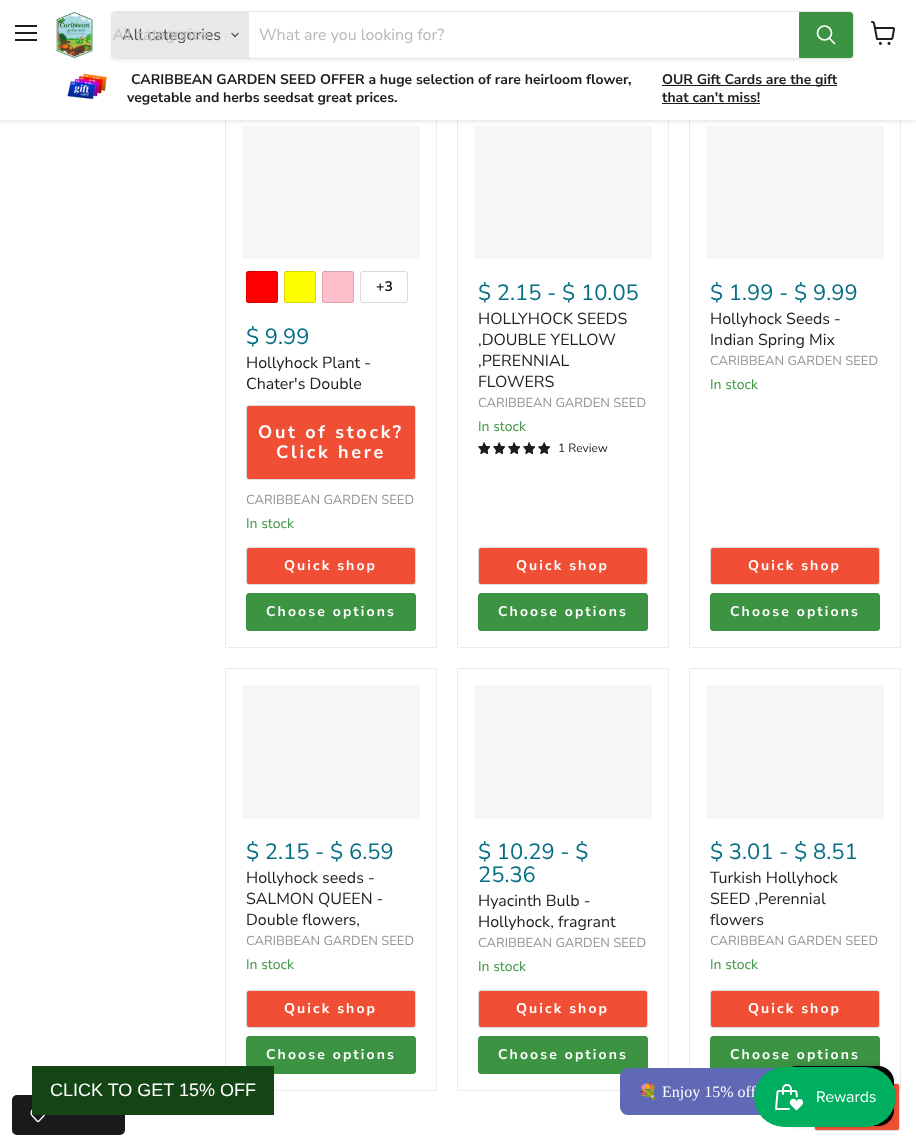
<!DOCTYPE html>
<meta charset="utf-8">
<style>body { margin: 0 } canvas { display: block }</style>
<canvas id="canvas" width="916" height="1147"></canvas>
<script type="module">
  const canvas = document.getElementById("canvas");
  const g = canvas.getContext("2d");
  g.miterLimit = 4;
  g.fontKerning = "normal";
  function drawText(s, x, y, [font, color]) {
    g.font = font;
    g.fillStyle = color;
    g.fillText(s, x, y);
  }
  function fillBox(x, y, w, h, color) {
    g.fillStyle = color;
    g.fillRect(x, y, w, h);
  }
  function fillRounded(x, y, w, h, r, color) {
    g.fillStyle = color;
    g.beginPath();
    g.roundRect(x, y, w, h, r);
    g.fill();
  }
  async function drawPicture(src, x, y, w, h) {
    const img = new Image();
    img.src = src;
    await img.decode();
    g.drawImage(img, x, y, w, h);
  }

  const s1 = ["16px Nunito Sans", "#4D4D4D"];
  const s2 = ["16px Liberation Sans", "#C3C3C3"];
  const s3 = ["16px Nunito Sans", "#B8B8B8"];
  const s4 = ["bold 14px Nunito Sans", "#1D1D1D"];
  const s5 = ["22px Nunito Sans", "#046E82"];
  const s6 = ["16px Nunito Sans", "#1D1D1D"];
  const s7 = ["bold 18px Nunito Sans", "#FFFFFF"];
  const s8 = ["13px Nunito Sans", "#949494"];
  const s9 = ["14px Nunito Sans", "#3C9342"];
  const s10 = ["bold 14px Nunito Sans", "#FFFFFF"];
  const s11 = ["12px Nunito Sans", "#1D1D1D"];
  const s12 = ["18px Liberation Sans", "#FFFFFF"];
  const s13 = ["16px Noto Color Emoji", "#FFFFFF"];
  const s14 = ["16px Liberation Serif", "#FFFFFF"];

  fillBox(0, 0, 916, 1147, "#FFFFFF");
  g.strokeStyle = "#EBEBEB";
  g.strokeRect(225.5, 109.5, 211, 538);
  fillBox(242, 126, 178, 133, "#F6F6F6");
  g.strokeRect(457.5, 109.5, 211, 538);
  fillBox(474, 126, 178, 133, "#F6F6F6");
  g.strokeRect(689.5, 109.5, 211, 538);
  fillBox(706, 126, 178, 133, "#F6F6F6");
  g.fillStyle = "rgba(128, 128, 128, 0.25)";
  g.filter = "blur(2px)";
  g.beginPath();
  g.rect(0, 1, 916, 120);
  g.fill();
  g.filter = "none";
  fillBox(0, 0, 916, 120, "#FFFFFF");
  fillBox(15, 25, 22, 2, "#1D1D1D");
  fillBox(15, 32, 22, 2, "#1D1D1D");
  fillBox(15, 39, 22, 2, "#1D1D1D");
  await drawPicture("pic1.png", 56, 12, 37, 47);
  g.save();
  g.beginPath();
  g.moveTo(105, 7);
  g.lineTo(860, 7);
  g.lineTo(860, 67);
  g.lineTo(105, 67);
  g.closePath();
  g.moveTo(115, 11);
  g.lineTo(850, 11);
  g.bezierCurveTo(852, 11, 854, 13, 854, 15);
  g.lineTo(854, 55);
  g.bezierCurveTo(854, 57, 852, 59, 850, 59);
  g.lineTo(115, 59);
  g.bezierCurveTo(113, 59, 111, 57, 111, 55);
  g.lineTo(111, 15);
  g.bezierCurveTo(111, 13, 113, 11, 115, 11);
  g.closePath();
  g.clip("evenodd");
  g.fillStyle = "rgba(128, 128, 128, 0.11)";
  g.filter = "blur(1.5px)";
  g.beginPath();
  g.roundRect(111, 13, 743, 48, 4);
  g.fill();
  g.filter = "none";
  g.restore();
  g.beginPath();
  g.roundRect(111.5, 11.5, 742, 47, 3.5);
  g.strokeStyle = "rgba(128, 128, 128, 0.2)";
  g.stroke();
  g.fillStyle = "#E8E8E8";
  g.beginPath();
  g.roundRect(112, 12, 137, 46, [3, 0, 0, 3]);
  g.fill();
  drawText("All categories", 122, 40, s1);
  drawText("All categories", 113, 40, s2);
  await drawPicture("pic2.png", 231, 32, 8, 6);
  drawText("What are you looking for?", 259, 40, s3);
  g.fillStyle = "#3C9342";
  g.beginPath();
  g.roundRect(799.5, 12.5, 53, 45, [0, 2.5, 2.5, 0]);
  g.fill();
  g.strokeStyle = "#3C9342";
  g.stroke();
  g.beginPath();
  g.moveTo(834.5, 43.5);
  g.lineTo(829.5, 38.5);
  g.strokeStyle = "#FFFFFF";
  g.lineWidth = 1.7;
  g.lineCap = "round";
  g.stroke();
  g.beginPath();
  g.arc(824.5, 33, 7, 0, Math.PI * 2);
  g.stroke();
  await drawPicture("pic3.png", 67, 73, 40, 27);
  drawText("CARIBBEAN GARDEN SEED OFFER a huge selection of rare heirloom flower,", 131, 84, s4);
  drawText("vegetable and herbs seedsat great prices.", 127, 102, s4);
  fillBox(662, 85, 175, 1, "#1D1D1D");
  drawText("OUR Gift Cards are the gift", 662, 84, s4);
  drawText("that can't miss!", 662, 102, s4);
  fillBox(662, 103, 98, 1, "#1D1D1D");
  await drawPicture("pic4.png", 871, 21, 24, 24);
  fillRounded(246, 271, 32, 32, 2.5, "#FF0000");
  g.beginPath();
  g.roundRect(246.5, 271.5, 31, 31, 2);
  g.strokeStyle = "rgba(0, 0, 0, 0.15)";
  g.lineWidth = 1;
  g.stroke();
  fillRounded(284, 271, 32, 32, 2.5, "#FFFF00");
  g.beginPath();
  g.roundRect(284.5, 271.5, 31, 31, 2);
  g.stroke();
  fillRounded(322, 271, 32, 32, 2.5, "#FFC0CB");
  g.beginPath();
  g.roundRect(322.5, 271.5, 31, 31, 2);
  g.stroke();
  g.beginPath();
  g.roundRect(360.5, 271.5, 47, 31, 2.5);
  g.strokeStyle = "#D9D9D9";
  g.stroke();
  drawText("+3", 376, 291, s4);
  drawText("$ 9.99", 246, 344, s5);
  drawText("Hollyhock Plant -", 246, 368, s6);
  drawText("Chater's Double", 246, 389, s6);
  g.fillStyle = "#F04F36";
  g.beginPath();
  g.roundRect(246.5, 405.5, 169, 74, 2.5);
  g.fill();
  g.strokeStyle = "#DDDDDD";
  g.stroke();
  g.letterSpacing = "2.75px";
  drawText("Out of stock?", 258, 438, s7);
  drawText("Click here", 276, 458, s7);
  g.letterSpacing = "0px";
  drawText("CARIBBEAN GARDEN SEED", 246, 504, s8);
  drawText("In stock", 246, 528, s9);
  g.fillStyle = "#F04F36";
  g.beginPath();
  g.roundRect(246.5, 547.5, 169, 37, 2.5);
  g.fill();
  g.stroke();
  g.letterSpacing = "2.1px";
  drawText("Quick shop", 284, 570, s10);
  g.fillStyle = "#3C9342";
  g.beginPath();
  g.roundRect(246.5, 593.5, 169, 37, 2.5);
  g.fill();
  g.strokeStyle = "#3C9342";
  g.stroke();
  drawText("Choose options", 266, 616, s10);
  g.letterSpacing = "0px";
  drawText("$ 2.15 - $ 10.05", 478, 300, s5);
  drawText("HOLLYHOCK SEEDS", 478, 324, s6);
  drawText(",DOUBLE YELLOW", 478, 345, s6);
  drawText(",PERENNIAL", 478, 366, s6);
  drawText("FLOWERS", 478, 387, s6);
  drawText("CARIBBEAN GARDEN SEED", 478, 407, s8);
  drawText("In stock", 478, 431, s9);
  g.save();
  g.beginPath();
  g.rect(478, 442, 12, 12);
  g.clip();
  g.fillStyle = "#1D1D1D";
  g.beginPath();
  g.moveTo(484, 442);
  g.lineTo(482.5, 446);
  g.lineTo(478, 446.5);
  g.lineTo(481, 450);
  g.lineTo(480.5, 454.5);
  g.lineTo(484, 452);
  g.lineTo(488, 454.5);
  g.lineTo(487.5, 450);
  g.lineTo(490.5, 446.5);
  g.lineTo(486, 446);
  g.closePath();
  g.fill();
  g.restore();
  g.save();
  g.beginPath();
  g.rect(478, 442, 12, 12);
  g.clip();
  g.beginPath();
  g.moveTo(484, 442);
  g.lineTo(486, 446);
  g.lineTo(490.5, 446.5);
  g.lineTo(487.5, 450);
  g.lineTo(488, 454.5);
  g.lineTo(484, 452);
  g.lineTo(480.5, 454.5);
  g.lineTo(481, 450);
  g.lineTo(478, 446.5);
  g.lineTo(482.5, 446);
  g.closePath();
  g.clip();
  g.beginPath();
  g.moveTo(484, 442);
  g.lineTo(486, 446);
  g.lineTo(490.5, 446.5);
  g.lineTo(487.5, 450);
  g.lineTo(488, 454.5);
  g.lineTo(484, 452);
  g.lineTo(480.5, 454.5);
  g.lineTo(481, 450);
  g.lineTo(478, 446.5);
  g.lineTo(482.5, 446);
  g.closePath();
  g.strokeStyle = "#1D1D1D";
  g.lineWidth = 1.8;
  g.lineJoin = "round";
  g.stroke();
  g.restore();
  g.save();
  g.beginPath();
  g.rect(493, 442, 12, 12);
  g.clip();
  g.fillStyle = "#1D1D1D";
  g.beginPath();
  g.moveTo(499, 442);
  g.lineTo(497.5, 446);
  g.lineTo(493, 446.5);
  g.lineTo(496, 450);
  g.lineTo(495.5, 454.5);
  g.lineTo(499, 452);
  g.lineTo(503, 454.5);
  g.lineTo(502.5, 450);
  g.lineTo(505.5, 446.5);
  g.lineTo(501, 446);
  g.closePath();
  g.fill();
  g.restore();
  g.save();
  g.beginPath();
  g.rect(493, 442, 12, 12);
  g.clip();
  g.beginPath();
  g.moveTo(499, 442);
  g.lineTo(501, 446);
  g.lineTo(505.5, 446.5);
  g.lineTo(502.5, 450);
  g.lineTo(503, 454.5);
  g.lineTo(499, 452);
  g.lineTo(495.5, 454.5);
  g.lineTo(496, 450);
  g.lineTo(493, 446.5);
  g.lineTo(497.5, 446);
  g.closePath();
  g.clip();
  g.beginPath();
  g.moveTo(499, 442);
  g.lineTo(501, 446);
  g.lineTo(505.5, 446.5);
  g.lineTo(502.5, 450);
  g.lineTo(503, 454.5);
  g.lineTo(499, 452);
  g.lineTo(495.5, 454.5);
  g.lineTo(496, 450);
  g.lineTo(493, 446.5);
  g.lineTo(497.5, 446);
  g.closePath();
  g.strokeStyle = "#1D1D1D";
  g.lineWidth = 1.8;
  g.lineJoin = "round";
  g.stroke();
  g.restore();
  g.save();
  g.beginPath();
  g.rect(508, 442, 12, 12);
  g.clip();
  g.fillStyle = "#1D1D1D";
  g.beginPath();
  g.moveTo(514, 442);
  g.lineTo(512.5, 446);
  g.lineTo(508, 446.5);
  g.lineTo(511, 450);
  g.lineTo(510.5, 454.5);
  g.lineTo(514, 452);
  g.lineTo(518, 454.5);
  g.lineTo(517.5, 450);
  g.lineTo(520.5, 446.5);
  g.lineTo(516, 446);
  g.closePath();
  g.fill();
  g.restore();
  g.save();
  g.beginPath();
  g.rect(508, 442, 12, 12);
  g.clip();
  g.beginPath();
  g.moveTo(514, 442);
  g.lineTo(516, 446);
  g.lineTo(520.5, 446.5);
  g.lineTo(517.5, 450);
  g.lineTo(518, 454.5);
  g.lineTo(514, 452);
  g.lineTo(510.5, 454.5);
  g.lineTo(511, 450);
  g.lineTo(508, 446.5);
  g.lineTo(512.5, 446);
  g.closePath();
  g.clip();
  g.beginPath();
  g.moveTo(514, 442);
  g.lineTo(516, 446);
  g.lineTo(520.5, 446.5);
  g.lineTo(517.5, 450);
  g.lineTo(518, 454.5);
  g.lineTo(514, 452);
  g.lineTo(510.5, 454.5);
  g.lineTo(511, 450);
  g.lineTo(508, 446.5);
  g.lineTo(512.5, 446);
  g.closePath();
  g.strokeStyle = "#1D1D1D";
  g.lineWidth = 1.8;
  g.lineJoin = "round";
  g.stroke();
  g.restore();
  g.save();
  g.beginPath();
  g.rect(523, 442, 12, 12);
  g.clip();
  g.fillStyle = "#1D1D1D";
  g.beginPath();
  g.moveTo(529, 442);
  g.lineTo(527.5, 446);
  g.lineTo(523, 446.5);
  g.lineTo(526, 450);
  g.lineTo(525.5, 454.5);
  g.lineTo(529, 452);
  g.lineTo(533, 454.5);
  g.lineTo(532.5, 450);
  g.lineTo(535.5, 446.5);
  g.lineTo(531, 446);
  g.closePath();
  g.fill();
  g.restore();
  g.save();
  g.beginPath();
  g.rect(523, 442, 12, 12);
  g.clip();
  g.beginPath();
  g.moveTo(529, 442);
  g.lineTo(531, 446);
  g.lineTo(535.5, 446.5);
  g.lineTo(532.5, 450);
  g.lineTo(533, 454.5);
  g.lineTo(529, 452);
  g.lineTo(525.5, 454.5);
  g.lineTo(526, 450);
  g.lineTo(523, 446.5);
  g.lineTo(527.5, 446);
  g.closePath();
  g.clip();
  g.beginPath();
  g.moveTo(529, 442);
  g.lineTo(531, 446);
  g.lineTo(535.5, 446.5);
  g.lineTo(532.5, 450);
  g.lineTo(533, 454.5);
  g.lineTo(529, 452);
  g.lineTo(525.5, 454.5);
  g.lineTo(526, 450);
  g.lineTo(523, 446.5);
  g.lineTo(527.5, 446);
  g.closePath();
  g.strokeStyle = "#1D1D1D";
  g.lineWidth = 1.8;
  g.lineJoin = "round";
  g.stroke();
  g.restore();
  await drawPicture("pic5.png", 538, 442, 12, 12);
  drawText("1 Review", 558, 452, s11);
  g.fillStyle = "#F04F36";
  g.beginPath();
  g.roundRect(478.5, 547.5, 169, 37, 2.5);
  g.fill();
  g.strokeStyle = "#DDDDDD";
  g.stroke();
  g.letterSpacing = "2.1px";
  drawText("Quick shop", 516, 570, s10);
  g.fillStyle = "#3C9342";
  g.beginPath();
  g.roundRect(478.5, 593.5, 169, 37, 2.5);
  g.fill();
  g.strokeStyle = "#3C9342";
  g.stroke();
  drawText("Choose options", 498, 616, s10);
  g.letterSpacing = "0px";
  drawText("$ 1.99 - $ 9.99", 710, 300, s5);
  drawText("Hollyhock Seeds -", 710, 324, s6);
  drawText("Indian Spring Mix", 710, 345, s6);
  drawText("CARIBBEAN GARDEN SEED", 710, 365, s8);
  drawText("In stock", 710, 389, s9);
  g.fillStyle = "#F04F36";
  g.beginPath();
  g.roundRect(710.5, 547.5, 169, 37, 2.5);
  g.fill();
  g.strokeStyle = "#DDDDDD";
  g.stroke();
  g.letterSpacing = "2.1px";
  drawText("Quick shop", 748, 570, s10);
  g.fillStyle = "#3C9342";
  g.beginPath();
  g.roundRect(710.5, 593.5, 169, 37, 2.5);
  g.fill();
  g.strokeStyle = "#3C9342";
  g.stroke();
  drawText("Choose options", 730, 616, s10);
  g.strokeStyle = "#EBEBEB";
  g.strokeRect(225.5, 668.5, 211, 422);
  fillBox(242, 685, 178, 134, "#F6F6F6");
  g.letterSpacing = "0px";
  drawText("$ 2.15 - $ 6.59", 246, 859, s5);
  drawText("Hollyhock seeds -", 246, 883, s6);
  drawText("SALMON QUEEN -", 246, 904, s6);
  drawText("Double flowers,", 246, 925, s6);
  drawText("CARIBBEAN GARDEN SEED", 246, 945, s8);
  drawText("In stock", 246, 969, s9);
  g.fillStyle = "#F04F36";
  g.beginPath();
  g.roundRect(246.5, 990.5, 169, 37, 2.5);
  g.fill();
  g.strokeStyle = "#DDDDDD";
  g.stroke();
  g.letterSpacing = "2.1px";
  drawText("Quick shop", 284, 1013, s10);
  g.fillStyle = "#3C9342";
  g.beginPath();
  g.roundRect(246.5, 1036.5, 169, 37, 2.5);
  g.fill();
  g.strokeStyle = "#3C9342";
  g.stroke();
  drawText("Choose options", 266, 1059, s10);
  g.strokeStyle = "#EBEBEB";
  g.strokeRect(457.5, 668.5, 211, 422);
  fillBox(474, 685, 178, 134, "#F6F6F6");
  g.letterSpacing = "0px";
  drawText("$ 10.29 - $", 478, 859, s5);
  drawText("25.36", 478, 882, s5);
  drawText("Hyacinth Bulb -", 478, 906, s6);
  drawText("Hollyhock, fragrant", 478, 927, s6);
  drawText("CARIBBEAN GARDEN SEED", 478, 947, s8);
  drawText("In stock", 478, 971, s9);
  g.fillStyle = "#F04F36";
  g.beginPath();
  g.roundRect(478.5, 990.5, 169, 37, 2.5);
  g.fill();
  g.strokeStyle = "#DDDDDD";
  g.stroke();
  g.letterSpacing = "2.1px";
  drawText("Quick shop", 516, 1013, s10);
  g.fillStyle = "#3C9342";
  g.beginPath();
  g.roundRect(478.5, 1036.5, 169, 37, 2.5);
  g.fill();
  g.strokeStyle = "#3C9342";
  g.stroke();
  drawText("Choose options", 498, 1059, s10);
  g.strokeStyle = "#EBEBEB";
  g.strokeRect(689.5, 668.5, 211, 422);
  fillBox(706, 685, 178, 134, "#F6F6F6");
  g.letterSpacing = "0px";
  drawText("$ 3.01 - $ 8.51", 710, 859, s5);
  drawText("Turkish Hollyhock", 710, 883, s6);
  drawText("SEED ,Perennial", 710, 904, s6);
  drawText("flowers", 710, 925, s6);
  drawText("CARIBBEAN GARDEN SEED", 710, 945, s8);
  drawText("In stock", 710, 969, s9);
  g.fillStyle = "#F04F36";
  g.beginPath();
  g.roundRect(710.5, 990.5, 169, 37, 2.5);
  g.fill();
  g.strokeStyle = "#DDDDDD";
  g.stroke();
  g.letterSpacing = "2.1px";
  drawText("Quick shop", 748, 1013, s10);
  g.fillStyle = "#3C9342";
  g.beginPath();
  g.roundRect(710.5, 1036.5, 169, 37, 2.5);
  g.fill();
  g.strokeStyle = "#3C9342";
  g.stroke();
  drawText("Choose options", 730, 1059, s10);
  g.fillStyle = "#F04F36";
  g.beginPath();
  g.roundRect(814.5, 1083.5, 85, 47, 2.5);
  g.fill();
  g.strokeStyle = "#DDDDDD";
  g.stroke();
  g.fillStyle = "#5F69B5";
  g.beginPath();
  g.roundRect(621, 1069, 262, 45, 7);
  g.fill();
  g.strokeStyle = "#5F69B5";
  g.lineWidth = 2;
  g.stroke();
  g.fillStyle = "rgba(0, 0, 0, 0.15)";
  g.filter = "blur(2.5px)";
  g.beginPath();
  g.roundRect(781, 1066, 113, 60, 16);
  g.fill();
  g.filter = "none";
  fillRounded(781, 1066, 113, 60, 16, "#000000");
  fillRounded(12, 1095, 113, 40, 5, "#1A1A1A");
  await drawPicture("pic7.png", 30, 1109, 15, 14);
  fillBox(32, 1066, 242, 49, "#144615");
  g.letterSpacing = "0px";
  drawText("CLICK TO GET 15% OFF", 50, 1096, s12);
  drawText("💐", 638, 1097, s13);
  drawText("Enjoy 15% off", 662, 1097, s14);
  await drawPicture("pic6.png", 754, 1067, 142, 60);
</script>
